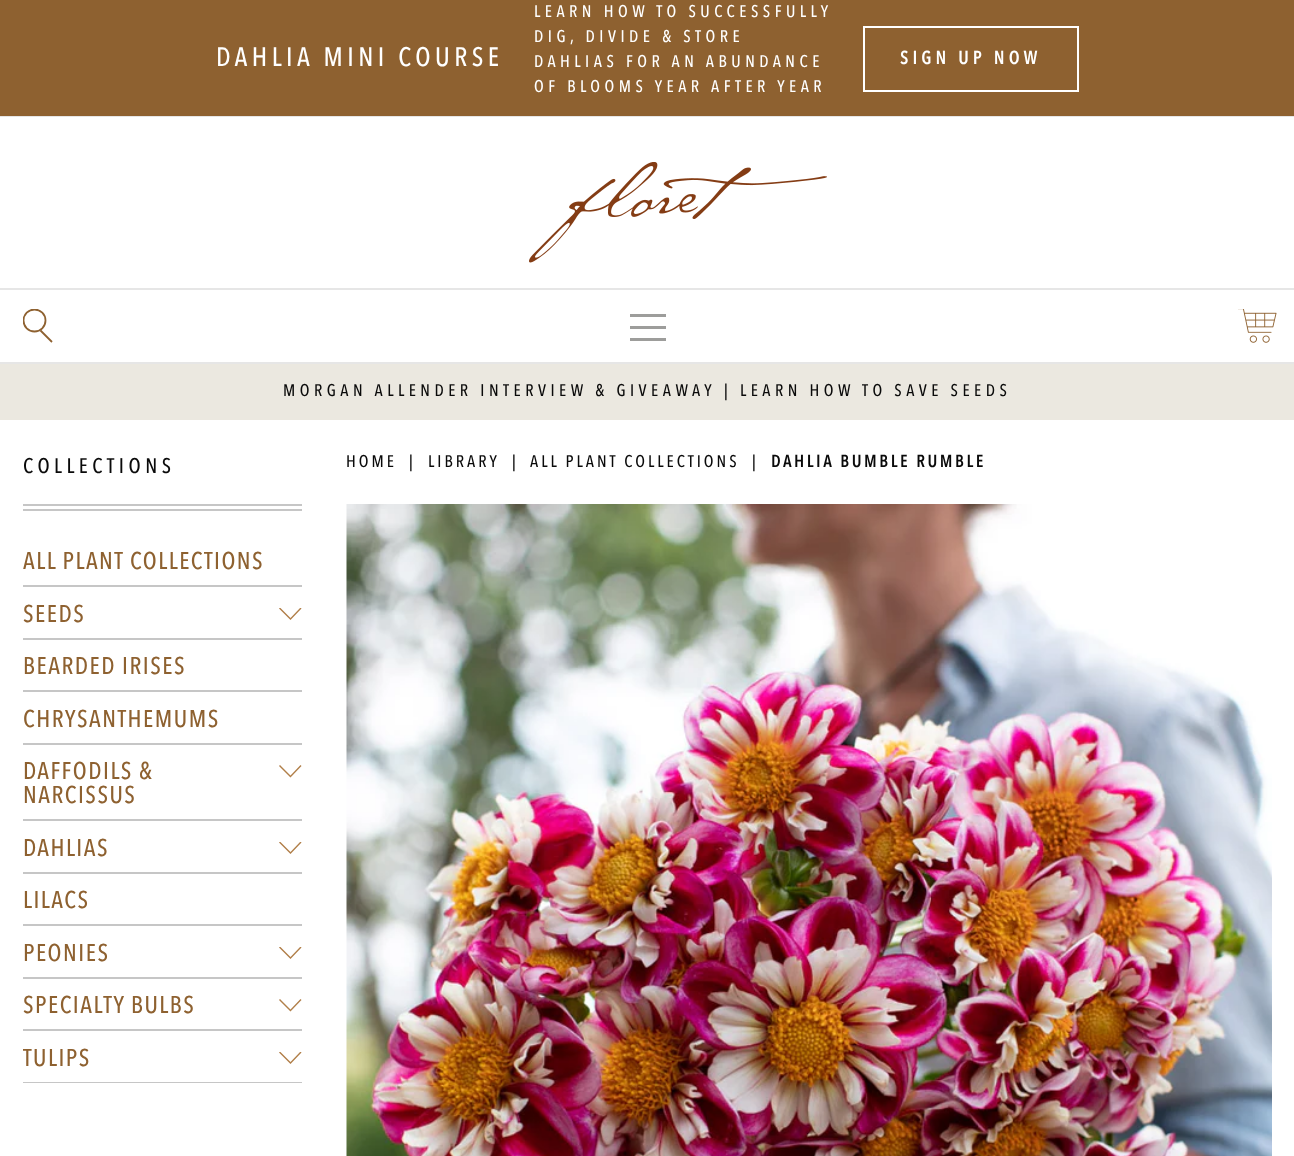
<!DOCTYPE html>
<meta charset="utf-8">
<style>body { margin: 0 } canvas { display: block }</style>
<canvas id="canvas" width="1294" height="1156"></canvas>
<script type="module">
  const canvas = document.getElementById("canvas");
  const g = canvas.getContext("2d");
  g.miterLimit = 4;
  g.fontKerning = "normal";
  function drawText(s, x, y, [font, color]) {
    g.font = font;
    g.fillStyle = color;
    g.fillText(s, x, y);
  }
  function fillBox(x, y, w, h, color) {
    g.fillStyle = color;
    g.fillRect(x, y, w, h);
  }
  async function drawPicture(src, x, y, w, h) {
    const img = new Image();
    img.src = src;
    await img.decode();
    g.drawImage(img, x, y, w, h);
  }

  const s1 = ["500 26.4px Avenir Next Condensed", "#FFFFFF"];
  const s2 = ["500 16.8px Avenir Next Condensed", "#FFFFFF"];
  const s3 = ["bold 18px Avenir Next Condensed", "#FFFFFF"];
  const s4 = ["500 16.8px Avenir Next Condensed", "#0A0A0A"];
  const s5 = ["500 21px Avenir Next Condensed", "#0A0A0A"];
  const s6 = ["500 24px Avenir Next Condensed", "#8E6130"];
  const s7 = ["bold 16.8px Avenir Next Condensed", "#0A0A0A"];

  fillBox(0, 0, 1294, 1156, "#FFFFFF");
  fillBox(0, 116, 1294, 1, "#E6E6E6");
  fillBox(0, 0, 1294, 116, "#8E6130");
  g.letterSpacing = "4.5px";
  drawText("DAHLIA MINI COURSE", 216, 66, s1);
  drawText("LEARN HOW TO SUCCESSFULLY", 534, 17, s2);
  drawText("DIG, DIVIDE & STORE", 534, 42, s2);
  drawText("DAHLIAS FOR AN ABUNDANCE", 534, 67, s2);
  drawText("OF BLOOMS YEAR AFTER YEAR", 534, 92, s2);
  g.strokeStyle = "#FFFFFF";
  g.lineWidth = 2;
  g.strokeRect(864, 27, 214, 64);
  drawText("SIGN UP NOW", 900, 64, s3);
  await drawPicture("pic1.png", 529, 162, 298, 101);
  fillBox(0, 288, 1294, 2, "#E6E6E6");
  fillBox(0, 362, 1294, 2, "#E6E6E6");
  fillBox(630, 326, 36, 3, "#9D9D9B");
  fillBox(630, 314, 36, 3, "#9D9D9B");
  fillBox(630, 338, 36, 3, "#9D9D9B");
  g.save();
  g.beginPath();
  g.rect(23, 309, 30, 35);
  g.clip();
  g.beginPath();
  g.arc(34.5, 320.5, 11, 0, Math.PI * 2);
  g.strokeStyle = "#8E6130";
  g.lineWidth = 1.8;
  g.stroke();
  g.restore();
  g.beginPath();
  g.moveTo(40.5, 330.5);
  g.lineTo(52, 342);
  g.strokeStyle = "#8E6130";
  g.lineWidth = 1.8;
  g.stroke();
  await drawPicture("pic2.png", 1238, 309, 39, 34);
  fillBox(0, 364, 1294, 56, "#EBE8E0");
  drawText("MORGAN ALLENDER INTERVIEW & GIVEAWAY", 283, 396, s4);
  drawText("| LEARN HOW TO SAVE SEEDS", 724, 396, s4);
  fillBox(23, 509, 279, 2, "#C6C6C6");
  drawText("COLLECTIONS", 23, 473, s5);
  fillBox(23, 504, 279, 2, "#C6C6C6");
  fillBox(23, 585, 279, 2, "#C6C6C6");
  g.letterSpacing = "1.5px";
  drawText("ALL PLANT COLLECTIONS", 23, 569, s6);
  fillBox(23, 638, 279, 2, "#C6C6C6");
  drawText("SEEDS", 23, 622, s6);
  g.save();
  g.beginPath();
  g.rect(279, 608, 23, 12);
  g.clip();
  g.fillStyle = "#B17F49";
  g.beginPath();
  g.moveTo(290.5, 620);
  g.lineTo(279, 608.5);
  g.lineTo(280, 607.5);
  g.lineTo(290.5, 618);
  g.lineTo(300.5, 607.5);
  g.lineTo(301.5, 608.5);
  g.closePath();
  g.fill();
  g.restore();
  fillBox(23, 690, 279, 2, "#C6C6C6");
  drawText("BEARDED IRISES", 23, 674, s6);
  fillBox(23, 743, 279, 2, "#C6C6C6");
  drawText("CHRYSANTHEMUMS", 23, 727, s6);
  fillBox(23, 819, 279, 2, "#C6C6C6");
  drawText("DAFFODILS &", 23, 779, s6);
  g.fillStyle = "#B17F49";
  g.beginPath();
  g.moveTo(290.5, 777.5);
  g.lineTo(279, 766);
  g.lineTo(280, 765);
  g.lineTo(290.5, 775.5);
  g.lineTo(300.5, 765);
  g.lineTo(301.5, 766);
  g.closePath();
  g.fill();
  drawText("NARCISSUS", 23, 803, s6);
  fillBox(23, 872, 279, 2, "#C6C6C6");
  drawText("DAHLIAS", 23, 856, s6);
  g.save();
  g.beginPath();
  g.rect(279, 842, 23, 12);
  g.clip();
  g.fillStyle = "#B17F49";
  g.beginPath();
  g.moveTo(290.5, 854);
  g.lineTo(279, 842.5);
  g.lineTo(280, 841.5);
  g.lineTo(290.5, 852);
  g.lineTo(300.5, 841.5);
  g.lineTo(301.5, 842.5);
  g.closePath();
  g.fill();
  g.restore();
  fillBox(23, 924, 279, 2, "#C6C6C6");
  drawText("LILACS", 23, 908, s6);
  fillBox(23, 977, 279, 2, "#C6C6C6");
  drawText("PEONIES", 23, 961, s6);
  g.save();
  g.beginPath();
  g.rect(279, 947, 23, 12);
  g.clip();
  g.fillStyle = "#B17F49";
  g.beginPath();
  g.moveTo(290.5, 959);
  g.lineTo(279, 947.5);
  g.lineTo(280, 946.5);
  g.lineTo(290.5, 957);
  g.lineTo(300.5, 946.5);
  g.lineTo(301.5, 947.5);
  g.closePath();
  g.fill();
  g.restore();
  fillBox(23, 1029, 279, 2, "#C6C6C6");
  drawText("SPECIALTY BULBS", 23, 1013, s6);
  g.fillStyle = "#B17F49";
  g.beginPath();
  g.moveTo(290.5, 1011.5);
  g.lineTo(279, 1000);
  g.lineTo(280, 999);
  g.lineTo(290.5, 1009.5);
  g.lineTo(300.5, 999);
  g.lineTo(301.5, 1000);
  g.closePath();
  g.fill();
  fillBox(23, 1082, 279, 1, "#C6C6C6");
  drawText("TULIPS", 23, 1066, s6);
  g.save();
  g.beginPath();
  g.rect(279, 1052, 23, 12);
  g.clip();
  g.fillStyle = "#B17F49";
  g.beginPath();
  g.moveTo(290.5, 1064);
  g.lineTo(279, 1052.5);
  g.lineTo(280, 1051.5);
  g.lineTo(290.5, 1062);
  g.lineTo(300.5, 1051.5);
  g.lineTo(301.5, 1052.5);
  g.closePath();
  g.fill();
  g.restore();
  g.letterSpacing = "3px";
  drawText("HOME", 346, 467, s4);
  drawText("|", 409, 467, s4);
  drawText("LIBRARY", 428, 467, s4);
  drawText("|", 512, 467, s4);
  drawText("ALL PLANT COLLECTIONS", 530, 467, s4);
  drawText("|", 752, 467, s4);
  drawText("DAHLIA BUMBLE RUMBLE", 771, 467, s7);
  await drawPicture("pic3.png", 346, 504, 926, 652);
</script>
